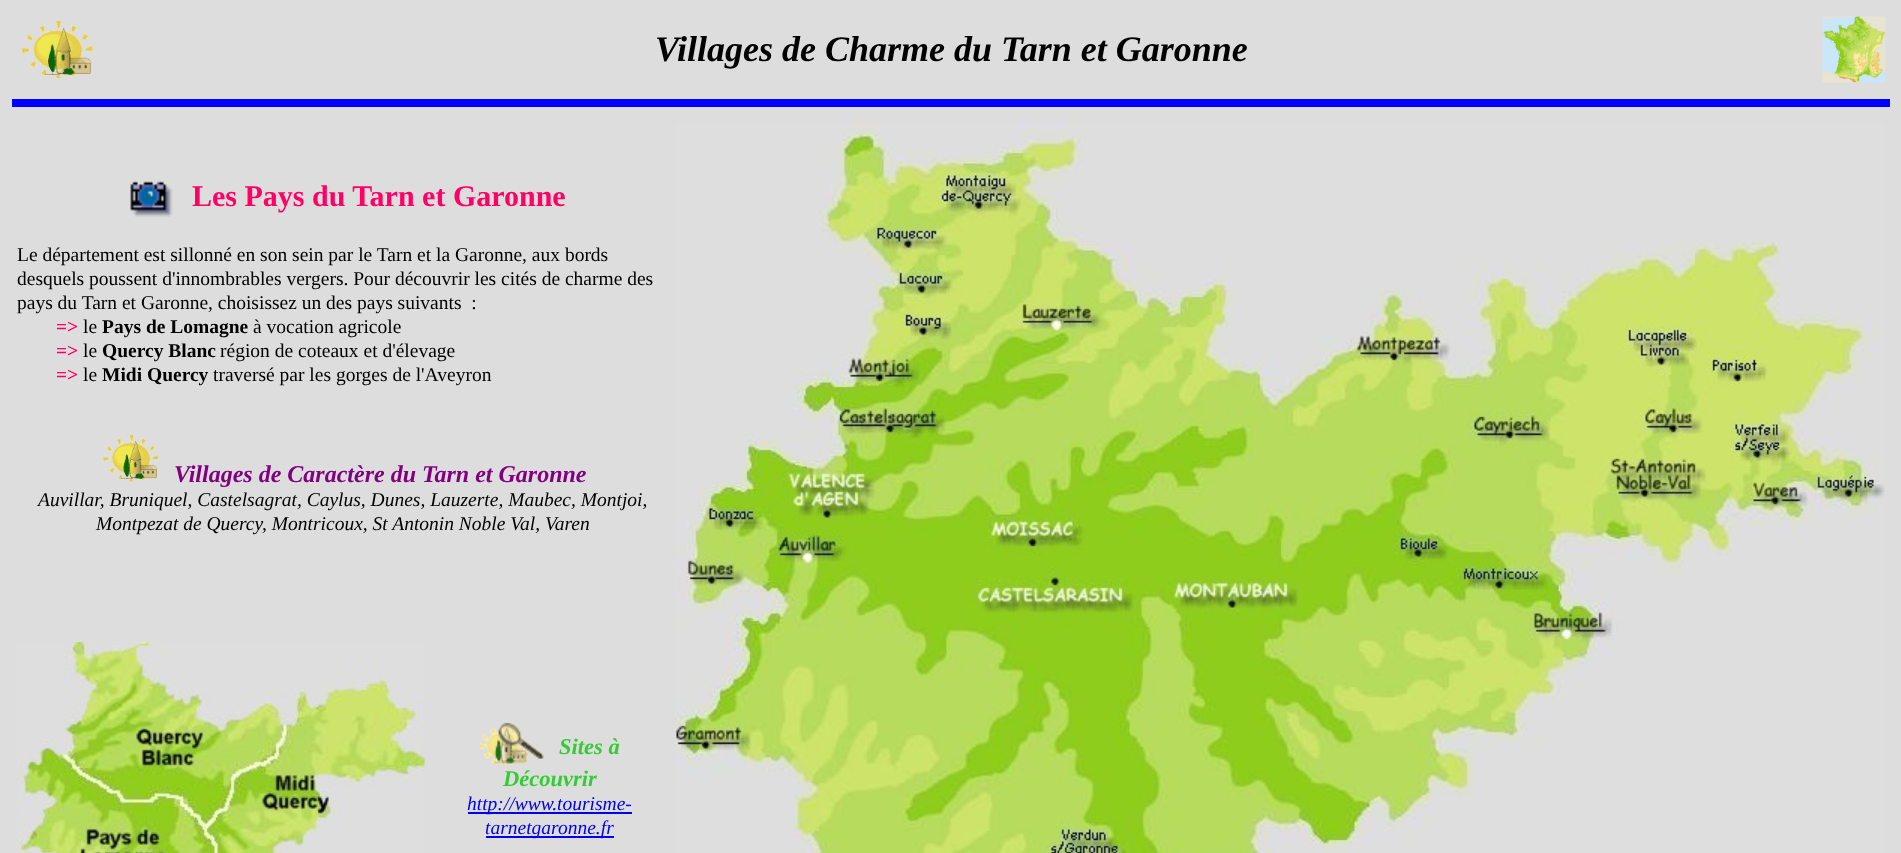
<!DOCTYPE html>
<meta charset="utf-8">
<style>body { margin: 0 } canvas { display: block }</style>
<canvas id="canvas" width="1901" height="853"></canvas>
<script type="module">
  const canvas = document.getElementById("canvas");
  const g = canvas.getContext("2d");
  g.miterLimit = 4;
  g.fontKerning = "normal";
  function drawText(s, x, y, [font, color]) {
    g.font = font;
    g.fillStyle = color;
    g.fillText(s, x, y);
  }
  function fillBox(x, y, w, h, color) {
    g.fillStyle = color;
    g.fillRect(x, y, w, h);
  }
  async function drawPicture(src, x, y, w, h) {
    const img = new Image();
    img.src = src;
    await img.decode();
    g.drawImage(img, x, y, w, h);
  }

  const s1 = ["italic bold 36px Liberation Serif", "#000000"];
  const s2 = ["bold 30px Liberation Serif", "#FF0066"];
  const s3 = ["19.5px Liberation Serif", "#000000"];
  const s4 = ["bold 19.5px Liberation Serif", "#FF0066"];
  const s5 = ["bold 19.5px Liberation Serif", "#000000"];
  const s6 = ["italic bold 24px Liberation Serif", "#800080"];
  const s7 = ["italic 19.5px Liberation Serif", "#000000"];
  const s8 = ["italic bold 22.5px Liberation Serif", "#33CC33"];
  const s9 = ["italic 19.5px Liberation Serif", "#0000EE"];

  fillBox(0, 0, 1901, 853, "#DDDDDD");
  await drawPicture("pic1.png", 22, 21, 71, 57);
  drawText("Villages de Charme du Tarn et Garonne", 655, 61, s1);
  await drawPicture("pic2.png", 1822, 16, 64, 67);
  fillBox(12, 99, 1878, 8, "#0000FF");
  await drawPicture("pic3.png", 130, 181, 43, 36);
  drawText("Les Pays du Tarn et Garonne", 192, 206, s2);
  drawText("Le département est sillonné en son sein par le Tarn et la Garonne, aux bords", 17, 261, s3);
  drawText("desquels poussent d'innombrables vergers. Pour découvrir les cités de charme des", 17, 285, s3);
  drawText("pays du Tarn et Garonne, choisissez un des pays suivants  :", 17, 309, s3);
  drawText("=>", 56, 333, s4);
  drawText("le", 83, 333, s3);
  drawText("Pays de Lomagne", 102, 333, s5);
  drawText("à vocation agricole", 253, 333, s3);
  drawText("=>", 56, 357, s4);
  drawText("le", 83, 357, s3);
  drawText("Quercy Blanc", 102, 357, s5);
  drawText("région de coteaux et d'élevage", 220, 357, s3);
  drawText("=>", 56, 381, s4);
  drawText("le", 83, 381, s3);
  drawText("Midi Quercy", 102, 381, s5);
  drawText("traversé par les gorges de l'Aveyron", 213, 381, s3);
  await drawPicture("pic4.png", 103, 435, 56, 47);
  drawText("Villages de Caractère du Tarn et Garonne", 174, 482, s6);
  drawText("Auvillar, Bruniquel, Castelsagrat, Caylus, Dunes, Lauzerte, Maubec, Montjoi,", 38, 506, s7);
  drawText("Montpezat de Quercy, Montricoux, St Antonin Noble Val, Varen", 96, 530, s7);
  await drawPicture("pic5.png", 675, 123, 1210, 730);
  await drawPicture("pic6.png", 16, 642, 409, 211);
  await drawPicture("pic7.png", 480, 723, 64, 42);
  drawText("Sites à", 559, 754, s8);
  drawText("Découvrir", 503, 786, s8);
  fillBox(468, 812, 164, 2, "#0000EE");
  drawText("http://www.tourisme-", 467, 810, s9);
  fillBox(486, 836, 128, 2, "#0000EE");
  drawText("tarnetgaronne.fr", 485, 834, s9);
</script>
